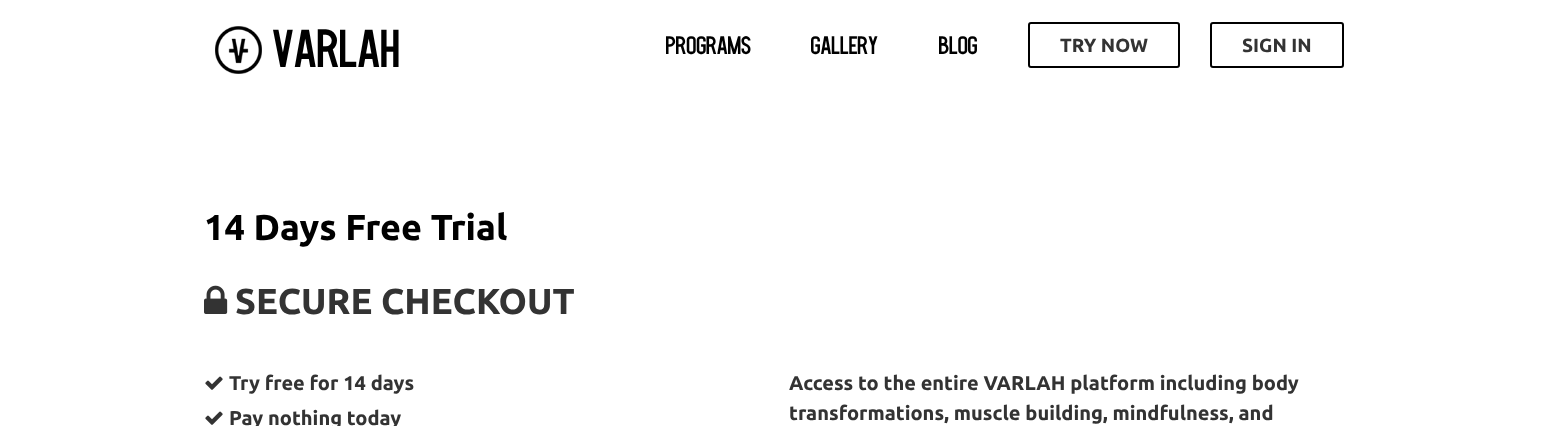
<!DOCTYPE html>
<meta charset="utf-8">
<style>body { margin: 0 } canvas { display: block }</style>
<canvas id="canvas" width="1547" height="426"></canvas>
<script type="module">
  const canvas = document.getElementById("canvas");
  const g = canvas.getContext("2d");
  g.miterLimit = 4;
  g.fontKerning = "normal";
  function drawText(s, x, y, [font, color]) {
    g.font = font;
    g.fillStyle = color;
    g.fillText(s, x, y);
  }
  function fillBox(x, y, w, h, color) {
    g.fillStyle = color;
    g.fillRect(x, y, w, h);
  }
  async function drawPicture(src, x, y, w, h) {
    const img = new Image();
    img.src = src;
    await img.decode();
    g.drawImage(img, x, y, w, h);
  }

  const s1 = ["40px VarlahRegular", "#000000"];
  const s2 = ["19px VarlahRegular", "#000000"];
  const s3 = ["bold 19px Ubuntu", "#333333"];
  const s4 = ["bold 36px Ubuntu", "#000000"];
  const s5 = ["bold 36px Ubuntu", "#333333"];
  const s6 = ["bold 20px Ubuntu", "#333333"];

  fillBox(0, 0, 1547, 426, "#FFFFFF");
  await drawPicture("pic1.png", 215, 26, 47, 48);
  drawText("VARLAH", 273, 67, s1);
  drawText("PROGRAMS", 666, 54, s2);
  drawText("GALLERY", 811, 54, s2);
  drawText("BLOG", 939, 54, s2);
  g.beginPath();
  g.roundRect(1029, 23, 150, 44, 2);
  g.strokeStyle = "#000000";
  g.lineWidth = 2;
  g.stroke();
  drawText("TRY NOW", 1060, 52, s3);
  g.beginPath();
  g.roundRect(1211, 23, 132, 44, 2);
  g.stroke();
  drawText("SIGN IN", 1242, 52, s3);
  drawText("14 Days Free Trial", 204, 240, s4);
  await drawPicture("pic2.png", 204, 285, 24, 29);
  drawText("SECURE CHECKOUT", 235, 314, s5);
  await drawPicture("pic3.png", 205, 376, 18, 14);
  drawText("Try free for 14 days", 229, 390, s6);
  await drawPicture("pic3.png", 205, 411, 18, 14);
  drawText("Pay nothing today", 229, 425, s6);
  drawText("Access to the entire VARLAH platform including body", 789, 390, s6);
  drawText("transformations, muscle building, mindfulness, and", 789, 420, s6);
</script>
